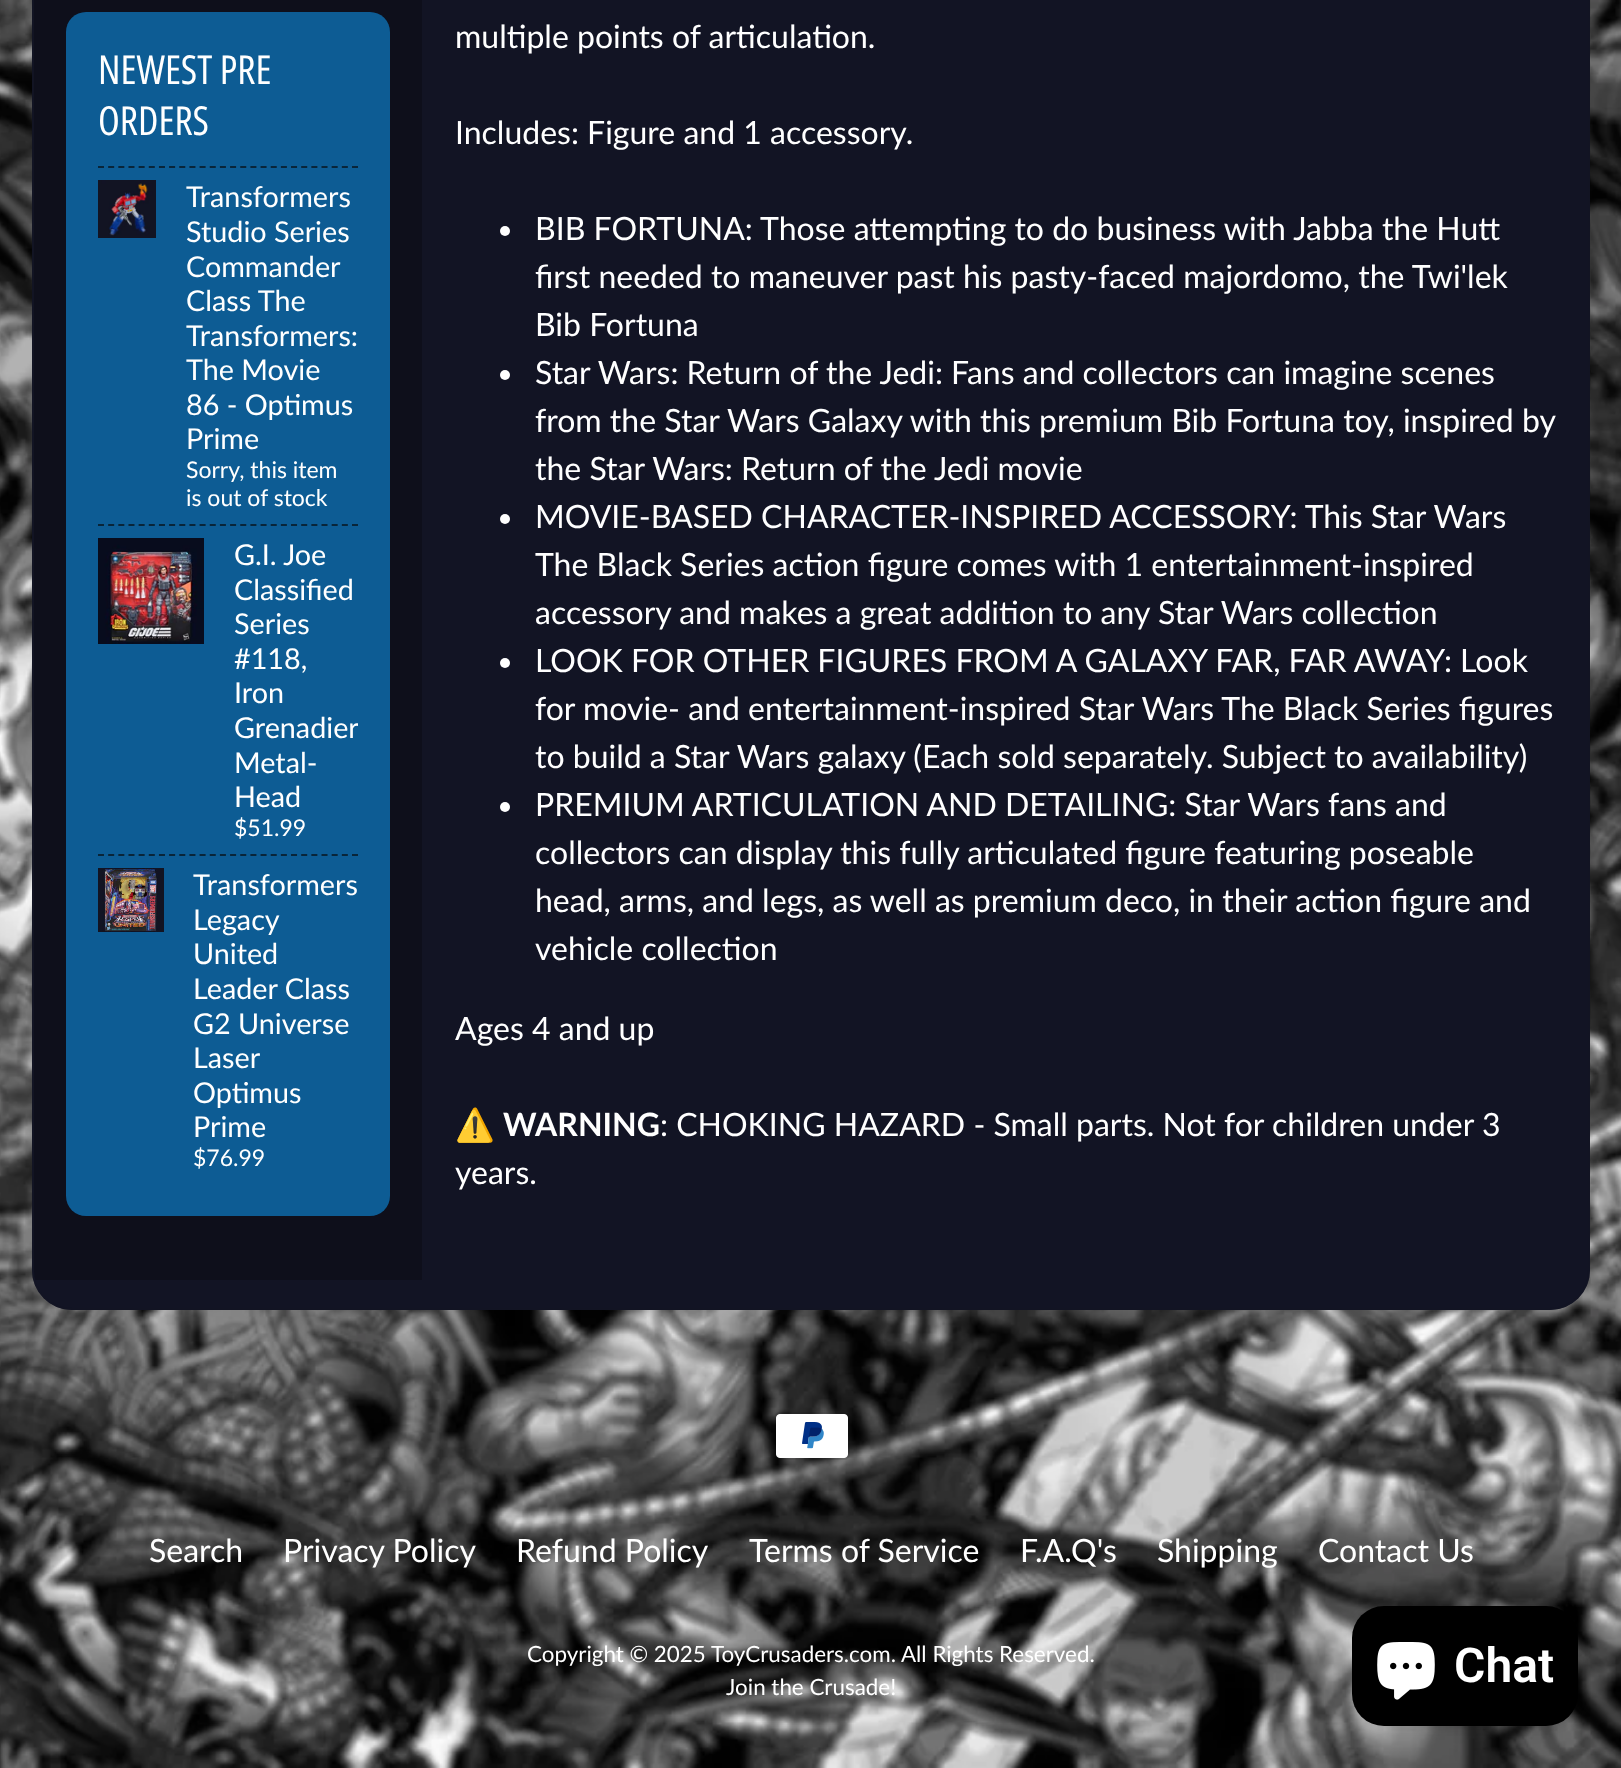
<!DOCTYPE html>
<meta charset="utf-8">
<style>body { margin: 0 } canvas { display: block }</style>
<canvas id="canvas" width="1621" height="1768"></canvas>
<script type="module">
  const canvas = document.getElementById("canvas");
  const g = canvas.getContext("2d");
  g.miterLimit = 4;
  g.fontKerning = "normal";
  function drawText(s, x, y, [font, color]) {
    g.font = font;
    g.fillStyle = color;
    g.fillText(s, x, y);
  }
  function fillBox(x, y, w, h, color) {
    g.fillStyle = color;
    g.fillRect(x, y, w, h);
  }
  function fillRounded(x, y, w, h, r, color) {
    g.fillStyle = color;
    g.beginPath();
    g.roundRect(x, y, w, h, r);
    g.fill();
  }
  async function drawPicture(src, x, y, w, h) {
    const img = new Image();
    img.src = src;
    await img.decode();
    g.drawImage(img, x, y, w, h);
  }

  const s1 = ["40px Open Sans Condensed", "#FFFFFF"];
  const s2 = ["28.75px Lato", "#FFFFFF"];
  const s3 = ["23px Lato", "#FFFFFF"];
  const s4 = ["32px Lato", "#FFFFFF"];
  const s5 = ["32px Noto Color Emoji", "#FFFFFF"];
  const s6 = ["bold 32px Lato", "#FFFFFF"];
  const s7 = ["22.4px Lato", "#FFFFFF"];
  const s8 = ["600 48px Roboto", "#FFFFFF"];

  fillBox(0, 0, 1621, 1768, "#FFFFFF");
  await drawPicture("pic1.png", 0, 0, 1621, 1768);
  fillRounded(32, -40, 1558, 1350, 40, "#121424");
  g.beginPath();
  g.roundRect(33, -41, 1556, 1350, 39);
  g.strokeStyle = "rgba(18, 20, 36, 0.7)";
  g.lineWidth = 2;
  g.stroke();
  g.save();
  g.beginPath();
  g.roundRect(34, -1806, 1554, 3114, 38);
  g.clip();
  g.fillStyle = "#0E0F1B";
  g.beginPath();
  g.moveTo(72, -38);
  g.lineTo(422, -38);
  g.lineTo(422, 1280);
  g.lineTo(34, 1280);
  g.lineTo(34, 0);
  g.bezierCurveTo(34, -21, 51, -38, 72, -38);
  g.closePath();
  g.fill();
  g.restore();
  fillRounded(66, 12, 324, 1204, 20, "#0D5C94");
  drawText("NEWEST PRE", 98, 84, s1);
  drawText("ORDERS", 98, 135, s1);
  g.beginPath();
  g.moveTo(98, 167);
  g.lineTo(358, 167);
  g.strokeStyle = "#092539";
  g.setLineDash([6, 4.16]);
  g.stroke();
  await drawPicture("pic2.png", 98, 180, 58, 58);
  drawText("Transformers", 186, 207, s2);
  drawText("Studio Series", 186, 242, s2);
  drawText("Commander", 186, 277, s2);
  drawText("Class The", 186, 311, s2);
  drawText("Transformers:", 186, 346, s2);
  drawText("The Movie", 186, 380, s2);
  drawText("86 - Optimus", 186, 415, s2);
  drawText("Prime", 186, 449, s2);
  drawText("Sorry, this item", 186, 478, s3);
  drawText("is out of stock", 186, 506, s3);
  g.beginPath();
  g.moveTo(98, 525);
  g.lineTo(358, 525);
  g.stroke();
  await drawPicture("pic3.png", 98, 538, 106, 106);
  drawText("G.I. Joe", 234, 565, s2);
  drawText("Classified", 234, 600, s2);
  drawText("Series", 234, 634, s2);
  drawText("#118,", 234, 669, s2);
  drawText("Iron", 234, 703, s2);
  g.save();
  g.beginPath();
  g.rect(98, 526, 260, 328);
  g.clip();
  drawText("Grenadier", 234, 738, s2);
  g.restore();
  drawText("Metal-", 234, 773, s2);
  drawText("Head", 234, 807, s2);
  drawText("$51.99", 234, 836, s3);
  g.beginPath();
  g.moveTo(98, 855);
  g.lineTo(358, 855);
  g.stroke();
  await drawPicture("pic4.png", 98, 868, 66, 64);
  drawText("Transformers", 193, 895, s2);
  drawText("Legacy", 193, 930, s2);
  drawText("United", 193, 964, s2);
  drawText("Leader Class", 193, 999, s2);
  drawText("G2 Universe", 193, 1034, s2);
  drawText("Laser", 193, 1068, s2);
  drawText("Optimus", 193, 1103, s2);
  drawText("Prime", 193, 1137, s2);
  drawText("$76.99", 193, 1166, s3);
  drawText("multiple points of articulation.", 455, 48, s4);
  drawText("Includes: Figure and 1 accessory.", 455, 144, s4);
  g.beginPath();
  g.arc(505, 231, 5, 0, Math.PI * 2);
  g.fill();
  drawText("BIB FORTUNA: Those attempting to do business with Jabba the Hutt", 535, 240, s4);
  drawText("first needed to maneuver past his pasty-faced majordomo, the Twi'lek", 535, 288, s4);
  drawText("Bib Fortuna", 535, 336, s4);
  g.beginPath();
  g.arc(505, 375, 5, 0, Math.PI * 2);
  g.fill();
  drawText("Star Wars: Return of the Jedi: Fans and collectors can imagine scenes", 535, 384, s4);
  drawText("from the Star Wars Galaxy with this premium Bib Fortuna toy, inspired by", 535, 432, s4);
  drawText("the Star Wars: Return of the Jedi movie", 535, 480, s4);
  g.beginPath();
  g.arc(505, 519, 5, 0, Math.PI * 2);
  g.fill();
  drawText("MOVIE-BASED CHARACTER-INSPIRED ACCESSORY: This Star Wars", 535, 528, s4);
  drawText("The Black Series action figure comes with 1 entertainment-inspired", 535, 576, s4);
  drawText("accessory and makes a great addition to any Star Wars collection", 535, 624, s4);
  g.beginPath();
  g.arc(505, 663, 5, 0, Math.PI * 2);
  g.fill();
  drawText("LOOK FOR OTHER FIGURES FROM A GALAXY FAR, FAR AWAY: Look", 535, 672, s4);
  drawText("for movie- and entertainment-inspired Star Wars The Black Series figures", 535, 720, s4);
  drawText("to build a Star Wars galaxy (Each sold separately. Subject to availability)", 535, 768, s4);
  g.beginPath();
  g.arc(505, 807, 5, 0, Math.PI * 2);
  g.fill();
  drawText("PREMIUM ARTICULATION AND DETAILING: Star Wars fans and", 535, 816, s4);
  drawText("collectors can display this fully articulated figure featuring poseable", 535, 864, s4);
  drawText("head, arms, and legs, as well as premium deco, in their action figure and", 535, 912, s4);
  drawText("vehicle collection", 535, 960, s4);
  drawText("Ages 4 and up", 455, 1040, s4);
  drawText("⚠️", 455, 1136, s5);
  drawText("WARNING", 503, 1136, s6);
  drawText(": CHOKING HAZARD - Small parts. Not for children under 3", 660, 1136, s4);
  drawText("years.", 455, 1184, s4);
  await drawPicture("pic5.png", 775, 1412, 75, 48);
  drawText("Search", 149, 1562, s4);
  drawText("Privacy Policy", 283, 1562, s4);
  drawText("Refund Policy", 516, 1562, s4);
  drawText("Terms of Service", 749, 1562, s4);
  drawText("F.A.Q's", 1020, 1562, s4);
  drawText("Shipping", 1157, 1562, s4);
  drawText("Contact Us", 1318, 1562, s4);
  drawText("Copyright © 2025", 527, 1662, s7);
  drawText("ToyCrusaders.com. All Rights Reserved.", 711, 1662, s7);
  drawText("Join the Crusade!", 726, 1695, s7);
  g.fillStyle = "rgba(0, 0, 0, 0.15)";
  g.filter = "blur(5px)";
  g.beginPath();
  g.roundRect(1352, 1606, 226, 120, 32);
  g.fill();
  g.filter = "none";
  fillRounded(1352, 1606, 226, 120, 32, "#000000");
  await drawPicture("pic6.png", 1377, 1642, 58, 58);
  drawText("Chat", 1454, 1682, s8);
</script>
